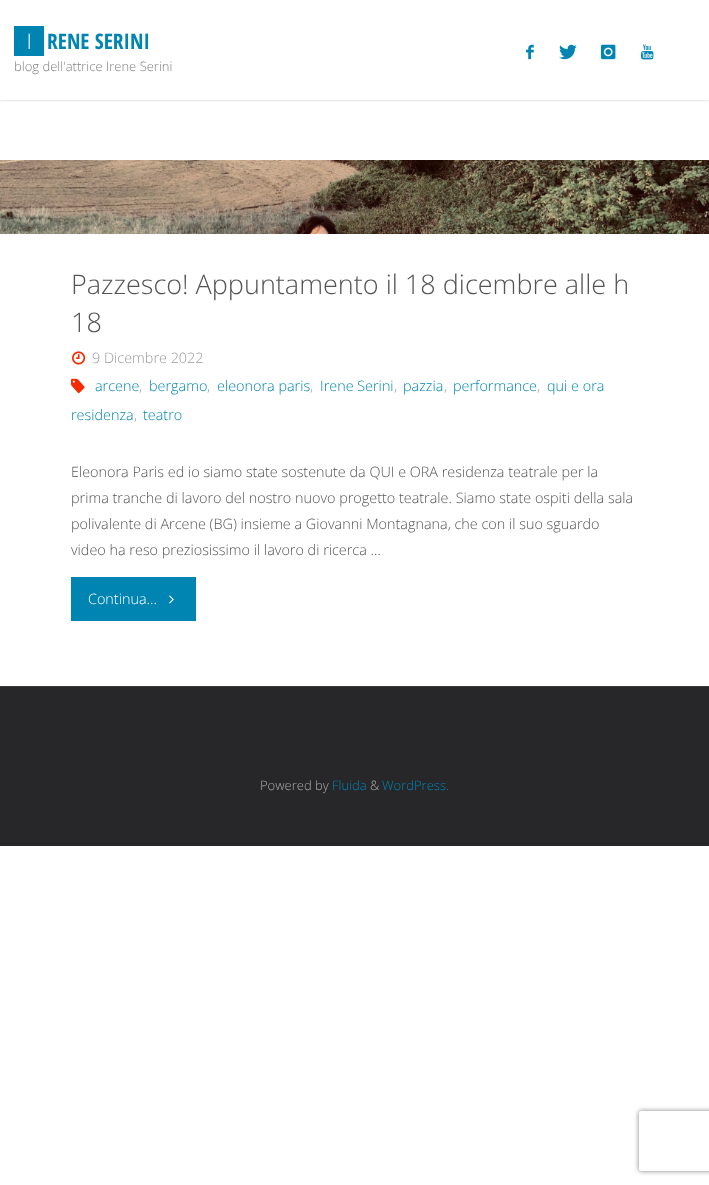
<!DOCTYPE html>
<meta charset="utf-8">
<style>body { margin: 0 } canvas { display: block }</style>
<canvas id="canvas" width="709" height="1185"></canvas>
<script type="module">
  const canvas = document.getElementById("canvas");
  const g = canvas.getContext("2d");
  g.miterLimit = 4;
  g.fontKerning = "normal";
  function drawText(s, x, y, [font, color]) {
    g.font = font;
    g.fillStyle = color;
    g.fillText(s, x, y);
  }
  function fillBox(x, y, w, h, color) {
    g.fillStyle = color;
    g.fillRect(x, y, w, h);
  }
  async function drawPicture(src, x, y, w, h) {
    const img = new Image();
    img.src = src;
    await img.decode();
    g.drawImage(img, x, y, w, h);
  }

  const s1 = ["300 21.5px Open Sans Condensed", "#FFFFFF"];
  const s2 = ["bold 21.5px Open Sans Condensed", "#0085B2"];
  const s3 = ["300 13px Open Sans", "#808080"];
  const s4 = ["300 27px Open Sans", "#555555"];
  const s5 = ["300 14.4px Open Sans", "#9A9A9A"];
  const s6 = ["300 14.4px Open Sans", "#0085B2"];
  const s7 = ["300 14.4px Open Sans", "#555555"];
  const s8 = ["300 14.4px Open Sans", "#FFFFFF"];
  const s9 = ["300 13px Open Sans", "#AAAAAA"];
  const s10 = ["300 13px Open Sans", "#0085B2"];

  fillBox(0, 0, 709, 1185, "#FFFFFF");
  g.save();
  g.beginPath();
  g.rect(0, 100, 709, 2);
  g.clip();
  g.fillStyle = "rgba(0, 0, 0, 0.2)";
  g.filter = "blur(1.5px)";
  g.beginPath();
  g.rect(0, 0, 709, 100);
  g.fill();
  g.filter = "none";
  g.restore();
  fillBox(14, 26, 30, 30, "#0085B2");
  drawText("I", 27, 49, s1);
  drawText("RENE SERINI", 47, 49, s2);
  drawText("blog dell'attrice Irene Serini", 14, 71, s3);
  await drawPicture("pic1.png", 526, 44, 8, 16);
  await drawPicture("pic2.png", 559, 44, 18, 16);
  await drawPicture("pic3.png", 601, 44, 15, 16);
  await drawPicture("pic4.png", 641, 44, 13, 16);
  await drawPicture("pic5.png", 0, 160, 709, 74);
  drawText("Pazzesco! Appuntamento il 18 dicembre alle h", 71, 294, s4);
  drawText("18", 71, 332, s4);
  await drawPicture("pic6.png", 72, 351, 14, 14);
  drawText("9 Dicembre 2022", 92, 363, s5);
  await drawPicture("pic7.png", 71, 378, 14, 16);
  drawText("arcene", 95, 391, s6);
  drawText(",", 139, 391, s5);
  drawText("bergamo", 149, 391, s6);
  drawText(",", 207, 391, s5);
  drawText("eleonora paris", 217, 391, s6);
  drawText(",", 310, 391, s5);
  drawText("Irene Serini", 320, 391, s6);
  drawText(",", 394, 391, s5);
  drawText("pazzia", 403, 391, s6);
  drawText(",", 444, 391, s5);
  drawText("performance", 453, 391, s6);
  drawText(",", 537, 391, s5);
  drawText("qui e ora", 547, 391, s6);
  drawText("residenza", 71, 420, s6);
  drawText(",", 134, 420, s5);
  drawText("teatro", 143, 420, s6);
  drawText("Eleonora Paris ed io siamo state sostenute da QUI e ORA residenza teatrale per la", 71, 477, s7);
  drawText("prima tranche di lavoro del nostro nuovo progetto teatrale. Siamo state ospiti della sala", 71, 503, s7);
  drawText("polivalente di Arcene (BG) insieme a Giovanni Montagnana, che con il suo sguardo", 71, 529, s7);
  drawText("video ha reso preziosissimo il lavoro di ricerca …", 71, 555, s7);
  fillBox(71, 577, 125, 44, "#0085B2");
  drawText("Continua...", 88, 604, s8);
  await drawPicture("pic8.png", 169, 595, 5, 9);
  fillBox(0, 687, 709, 159, "#27272A");
  fillBox(0, 686, 709, 1, "#3B3B3E");
  drawText("Powered by", 260, 790, s9);
  drawText("Fluida", 332, 790, s10);
  drawText("&", 370, 790, s9);
  drawText("WordPress.", 382, 790, s10);
  g.save();
  g.beginPath();
  g.moveTo(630, 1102);
  g.lineTo(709, 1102);
  g.lineTo(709, 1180);
  g.lineTo(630, 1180);
  g.closePath();
  g.moveTo(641, 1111);
  g.lineTo(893, 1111);
  g.bezierCurveTo(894, 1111, 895, 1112, 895, 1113);
  g.lineTo(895, 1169);
  g.bezierCurveTo(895, 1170, 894, 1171, 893, 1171);
  g.lineTo(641, 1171);
  g.bezierCurveTo(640, 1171, 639, 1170, 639, 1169);
  g.lineTo(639, 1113);
  g.bezierCurveTo(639, 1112, 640, 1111, 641, 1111);
  g.closePath();
  g.clip("evenodd");
  g.fillStyle = "#808080";
  g.filter = "blur(2.5px)";
  g.beginPath();
  g.roundRect(639, 1111, 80, 60, 2);
  g.fill();
  g.filter = "none";
  g.restore();
</script>
